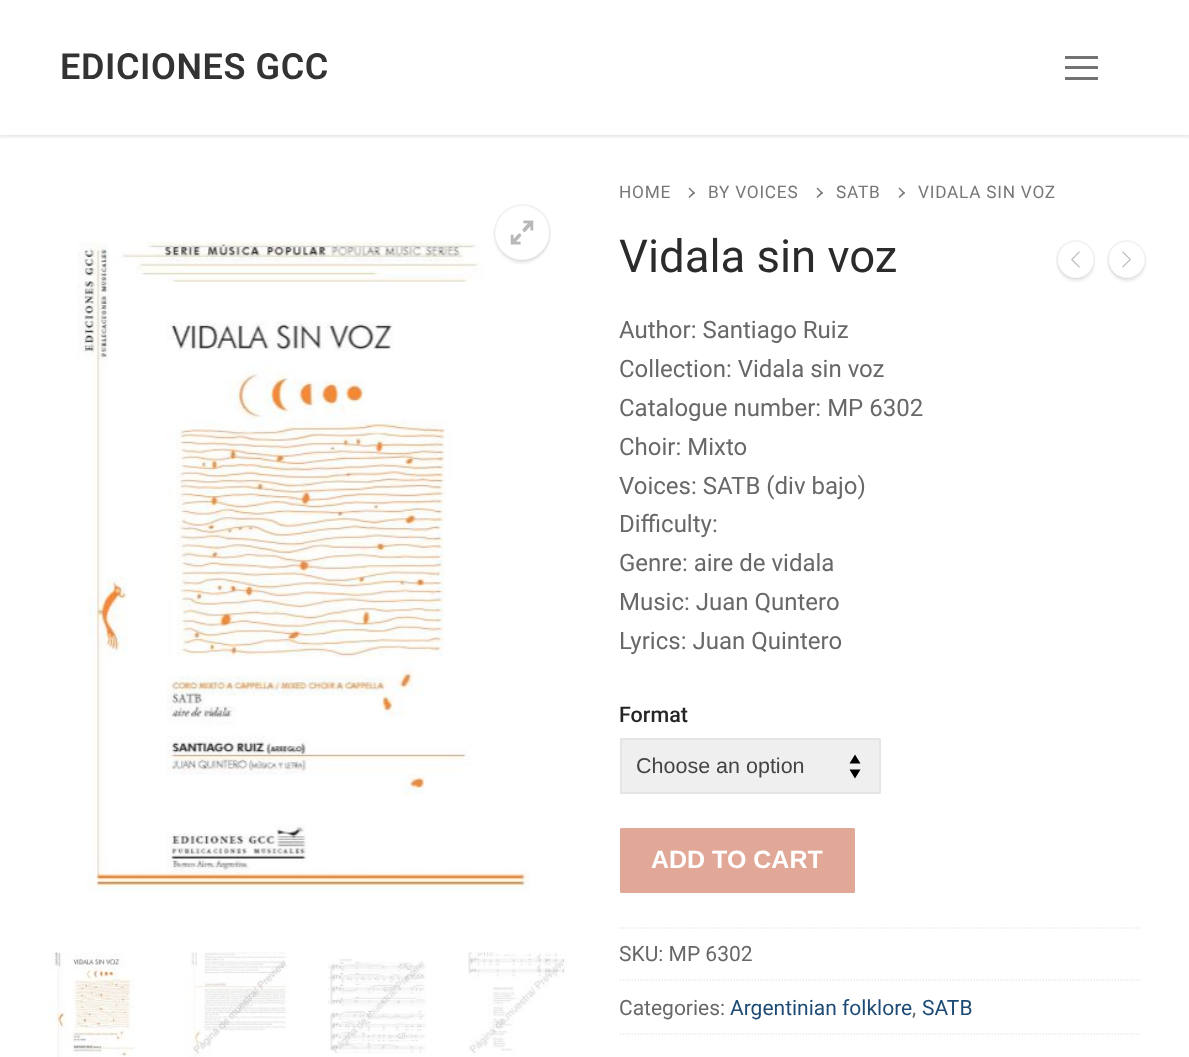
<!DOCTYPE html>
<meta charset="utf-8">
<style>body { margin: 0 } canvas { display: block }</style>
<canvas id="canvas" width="1189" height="1057"></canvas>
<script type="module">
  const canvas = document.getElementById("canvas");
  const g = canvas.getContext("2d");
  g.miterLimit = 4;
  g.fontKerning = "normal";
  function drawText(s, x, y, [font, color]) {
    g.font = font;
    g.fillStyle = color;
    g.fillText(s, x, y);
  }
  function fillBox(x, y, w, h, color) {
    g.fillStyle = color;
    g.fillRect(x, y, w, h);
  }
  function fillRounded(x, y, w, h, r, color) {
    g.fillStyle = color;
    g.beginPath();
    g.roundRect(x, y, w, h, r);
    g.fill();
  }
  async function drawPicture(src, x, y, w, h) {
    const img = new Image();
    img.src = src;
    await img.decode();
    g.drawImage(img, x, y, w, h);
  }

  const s1 = ["600 36px Roboto", "#333333"];
  const s2 = ["17.25px Roboto", "#777777"];
  const s3 = ["45.5px Roboto", "#2B2B2B"];
  const s4 = ["24px Roboto", "#686868"];
  const s5 = ["500 21.5px Roboto", "#252525"];
  const s6 = ["21.5px Liberation Sans", "#444444"];
  const s7 = ["bold 25px Liberation Sans", "#FFFFFF"];
  const s8 = ["21px Roboto", "#686868"];
  const s9 = ["21px Roboto", "#1E4B75"];

  fillBox(0, 0, 1189, 1057, "#FFFFFF");
  g.save();
  g.beginPath();
  g.rect(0, 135, 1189, 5);
  g.clip();
  g.fillStyle = "#E1E5EA";
  g.filter = "blur(1.5px)";
  g.beginPath();
  g.rect(0, 2, 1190, 135);
  g.fill();
  g.filter = "none";
  g.restore();
  g.letterSpacing = "0.6px";
  drawText("EDICIONES GCC", 60, 79, s1);
  fillBox(1065, 66, 33, 3, "#737373");
  fillBox(1065, 56, 33, 3, "#737373");
  fillBox(1065, 77, 33, 3, "#737373");
  await drawPicture("pic2.png", 77, 241, 453, 652);
  g.beginPath();
  g.arc(522.5, 232.5, 27.5, 0, Math.PI * 2);
  g.strokeStyle = "#F3F3F3";
  g.lineWidth = 2;
  g.stroke();
  g.save();
  g.beginPath();
  g.moveTo(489, 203);
  g.lineTo(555, 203);
  g.lineTo(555, 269);
  g.lineTo(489, 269);
  g.closePath();
  g.moveTo(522, 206);
  g.bezierCurveTo(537, 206, 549, 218, 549, 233);
  g.bezierCurveTo(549, 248, 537, 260, 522, 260);
  g.bezierCurveTo(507, 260, 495, 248, 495, 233);
  g.bezierCurveTo(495, 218, 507, 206, 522, 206);
  g.closePath();
  g.clip("evenodd");
  g.fillStyle = "rgba(102, 102, 102, 0.16)";
  g.filter = "blur(1.5px)";
  g.beginPath();
  g.roundRect(495, 209, 54, 54, 27);
  g.fill();
  g.filter = "none";
  g.restore();
  g.fillStyle = "rgba(255, 255, 255, 0.5)";
  g.beginPath();
  g.arc(522, 233, 27, 0, Math.PI * 2);
  g.fill();
  await drawPicture("pic1.png", 510, 220, 24, 25);
  await drawPicture("pic3.png", 48, 952, 87, 105);
  await drawPicture("pic4.png", 186, 952, 104, 105);
  await drawPicture("pic5.png", 327, 958, 100, 96);
  await drawPicture("pic6.png", 468, 952, 99, 104);
  g.letterSpacing = "0.75px";
  drawText("HOME", 619, 198, s2);
  g.beginPath();
  g.moveTo(695, 193);
  g.lineTo(689.5, 198);
  g.lineTo(688.5, 197);
  g.lineTo(694, 191.5);
  g.closePath();
  g.fill();
  g.beginPath();
  g.moveTo(695, 193);
  g.lineTo(694, 194);
  g.lineTo(688.5, 188.5);
  g.lineTo(689.5, 187.5);
  g.closePath();
  g.fill();
  drawText("BY VOICES", 708, 198, s2);
  g.beginPath();
  g.moveTo(823, 193);
  g.lineTo(817.5, 198);
  g.lineTo(816.5, 197);
  g.lineTo(822, 191.5);
  g.closePath();
  g.fill();
  g.beginPath();
  g.moveTo(823, 193);
  g.lineTo(822, 194);
  g.lineTo(816.5, 188.5);
  g.lineTo(817.5, 187.5);
  g.closePath();
  g.fill();
  drawText("SATB", 836, 198, s2);
  g.beginPath();
  g.moveTo(905, 193);
  g.lineTo(899.5, 198);
  g.lineTo(898.5, 197);
  g.lineTo(904, 191.5);
  g.closePath();
  g.fill();
  g.beginPath();
  g.moveTo(905, 193);
  g.lineTo(904, 194);
  g.lineTo(898.5, 188.5);
  g.lineTo(899.5, 187.5);
  g.closePath();
  g.fill();
  drawText("VIDALA SIN VOZ", 918, 198, s2);
  g.letterSpacing = "0px";
  drawText("Vidala sin voz", 619, 272, s3);
  g.beginPath();
  g.arc(1075.5, 259.5, 18.5, 0, Math.PI * 2);
  g.stroke();
  g.save();
  g.beginPath();
  g.moveTo(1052, 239);
  g.lineTo(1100, 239);
  g.lineTo(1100, 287);
  g.lineTo(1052, 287);
  g.closePath();
  g.moveTo(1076, 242);
  g.bezierCurveTo(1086, 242, 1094, 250, 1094, 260);
  g.bezierCurveTo(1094, 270, 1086, 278, 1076, 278);
  g.bezierCurveTo(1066, 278, 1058, 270, 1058, 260);
  g.bezierCurveTo(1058, 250, 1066, 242, 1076, 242);
  g.closePath();
  g.clip("evenodd");
  g.fillStyle = "rgba(102, 102, 102, 0.16)";
  g.filter = "blur(1.5px)";
  g.beginPath();
  g.roundRect(1058, 245, 36, 36, 18);
  g.fill();
  g.filter = "none";
  g.restore();
  g.fillStyle = "rgba(255, 255, 255, 0.5)";
  g.beginPath();
  g.arc(1076, 260, 18, 0, Math.PI * 2);
  g.fill();
  await drawPicture("pic7.png", 1071, 251, 9, 17);
  g.beginPath();
  g.arc(1126.5, 259.5, 18.5, 0, Math.PI * 2);
  g.stroke();
  g.save();
  g.beginPath();
  g.moveTo(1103, 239);
  g.lineTo(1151, 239);
  g.lineTo(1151, 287);
  g.lineTo(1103, 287);
  g.closePath();
  g.moveTo(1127, 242);
  g.bezierCurveTo(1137, 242, 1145, 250, 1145, 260);
  g.bezierCurveTo(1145, 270, 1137, 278, 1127, 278);
  g.bezierCurveTo(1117, 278, 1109, 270, 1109, 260);
  g.bezierCurveTo(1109, 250, 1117, 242, 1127, 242);
  g.closePath();
  g.clip("evenodd");
  g.fillStyle = "rgba(102, 102, 102, 0.16)";
  g.filter = "blur(1.5px)";
  g.beginPath();
  g.roundRect(1109, 245, 36, 36, 18);
  g.fill();
  g.filter = "none";
  g.restore();
  g.beginPath();
  g.arc(1127, 260, 18, 0, Math.PI * 2);
  g.fill();
  await drawPicture("pic8.png", 1122, 251, 9, 17);
  drawText("Author: Santiago Ruiz", 619, 338, s4);
  drawText("Collection: Vidala sin voz", 619, 377, s4);
  drawText("Catalogue number: MP 6302", 619, 416, s4);
  drawText("Choir: Mixto", 619, 455, s4);
  drawText("Voices: SATB (div bajo)", 619, 494, s4);
  drawText("Difficulty:", 619, 532, s4);
  drawText("Genre: aire de vidala", 619, 571, s4);
  drawText("Music: Juan Quntero", 619, 610, s4);
  drawText("Lyrics: Juan Quintero", 619, 649, s4);
  drawText("Format", 619, 722, s5);
  fillRounded(620, 738, 261, 56, 1.5, "#EFEFEF");
  g.fillStyle = "#000000";
  g.beginPath();
  g.moveTo(855, 754.5);
  g.lineTo(849.5, 763.5);
  g.lineTo(860.5, 763.5);
  g.closePath();
  g.moveTo(855, 778.5);
  g.lineTo(860.5, 769.5);
  g.lineTo(849.5, 769.5);
  g.closePath();
  g.fill();
  g.beginPath();
  g.roundRect(621, 739, 259, 54, 0.5);
  g.strokeStyle = "#E5E5E5";
  g.stroke();
  drawText("Choose an option", 636, 773, s6);
  fillRounded(620, 828, 235, 65, 1.5, "#E1A897");
  drawText("ADD TO CART", 651, 868, s7);
  g.beginPath();
  g.moveTo(619.5, 928);
  g.lineTo(1141.5, 928);
  g.strokeStyle = "#EAECEE";
  g.lineWidth = 1.5;
  g.setLineDash([1.5, 1.5]);
  g.stroke();
  drawText("SKU: MP 6302", 619, 961, s8);
  g.beginPath();
  g.moveTo(619.5, 980);
  g.lineTo(1141.5, 980);
  g.stroke();
  drawText("Categories:", 619, 1015, s8);
  drawText("Argentinian folklore", 730, 1015, s9);
  drawText(",", 912, 1015, s8);
  drawText("SATB", 922, 1015, s9);
  g.beginPath();
  g.moveTo(619.5, 1034);
  g.lineTo(1141.5, 1034);
  g.stroke();
</script>
